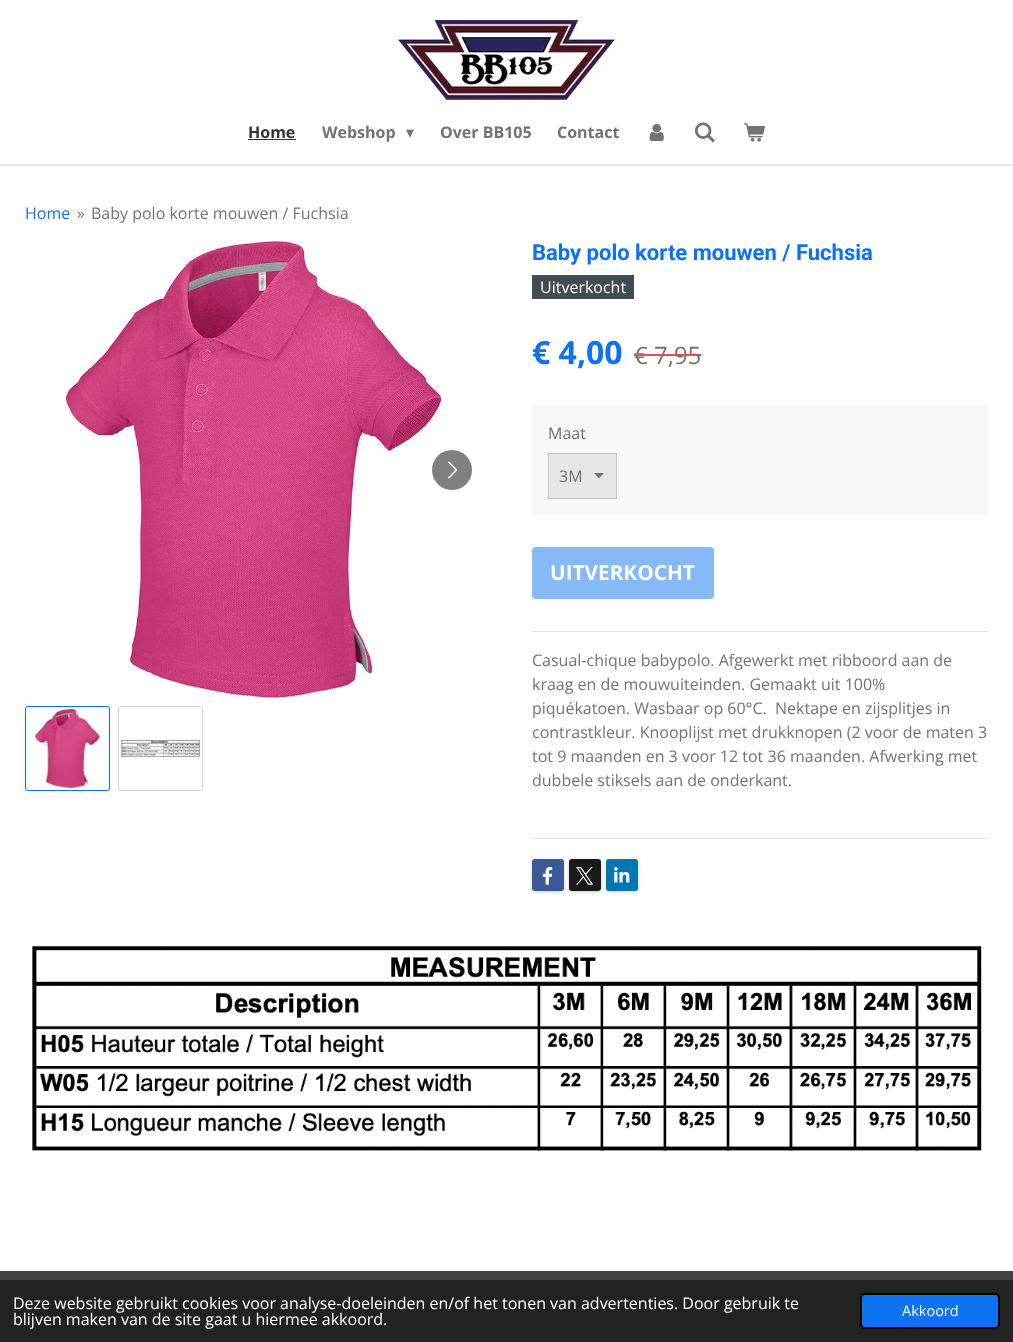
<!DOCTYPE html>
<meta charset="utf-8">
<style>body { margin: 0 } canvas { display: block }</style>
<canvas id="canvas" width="1013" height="1342"></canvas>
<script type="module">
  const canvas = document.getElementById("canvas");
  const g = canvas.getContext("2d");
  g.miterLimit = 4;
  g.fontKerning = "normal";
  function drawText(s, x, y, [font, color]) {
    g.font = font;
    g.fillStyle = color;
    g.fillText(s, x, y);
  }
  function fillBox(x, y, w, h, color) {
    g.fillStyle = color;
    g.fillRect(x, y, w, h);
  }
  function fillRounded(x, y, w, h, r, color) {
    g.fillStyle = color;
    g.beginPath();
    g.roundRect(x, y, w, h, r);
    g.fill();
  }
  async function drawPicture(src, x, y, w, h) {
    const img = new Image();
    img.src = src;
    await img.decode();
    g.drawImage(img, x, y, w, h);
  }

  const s1 = ["bold 16px Open Sans", "#333333"];
  const s2 = ["bold 16px Open Sans", "#737373"];
  const s3 = ["16px DejaVu Sans", "#737373"];
  const s4 = ["16px Open Sans", "#0C72F1"];
  const s5 = ["16px Open Sans", "#737373"];
  const s6 = ["bold 22px Roboto", "#0C72F1"];
  const s7 = ["16px Open Sans", "#FFFFFF"];
  const s8 = ["bold 32px Open Sans", "#0C72F1"];
  const s9 = ["24px Open Sans", "#737373"];
  const s10 = ["bold 20.75px Open Sans", "#FFFFFF"];
  const s11 = ["14.5px Open Sans", "#FFFFFF"];

  fillBox(0, 0, 1013, 1342, "#FFFFFF");
  await drawPicture("pic1.png", 398, 20, 217, 80);
  drawText("Home", 248, 138, s1);
  fillBox(248, 139, 48, 1, "#333333");
  drawText("Webshop", 322, 138, s2);
  drawText("▾", 406, 138, s3);
  drawText("Over BB105", 440, 138, s2);
  drawText("Contact", 557, 138, s2);
  await drawPicture("pic2.png", 649, 123, 15, 19);
  await drawPicture("pic3.png", 694, 122, 21, 21);
  await drawPicture("pic4.png", 744, 123, 21, 19);
  fillBox(0, 164, 1013, 2, "#EAEAEA");
  drawText("Home", 25, 219, s4);
  drawText("»", 77, 219, s5);
  drawText("Baby polo korte mouwen / Fuchsia", 91, 219, s5);
  await drawPicture("pic5.png", 65, 241, 377, 457);
  g.fillStyle = "#808080";
  g.beginPath();
  g.arc(452, 470, 20, 0, Math.PI * 2);
  g.fill();
  await drawPicture("pic6.png", 448, 461, 10, 18);
  g.beginPath();
  g.roundRect(25.5, 706.5, 84, 84, 2.5);
  g.strokeStyle = "#0C72F1";
  g.stroke();
  await drawPicture("pic7.png", 35, 709, 65, 79);
  g.beginPath();
  g.roundRect(118.5, 706.5, 84, 84, 2.5);
  g.strokeStyle = "#D5D5D5";
  g.stroke();
  await drawPicture("pic8.png", 121, 740, 79, 17);
  drawText("Baby polo korte mouwen / Fuchsia", 532, 260, s6);
  fillBox(532, 275, 102, 24, "#424C51");
  drawText("Uitverkocht", 540, 293, s7);
  drawText("€ 4,00", 532, 364, s8);
  drawText("€ 7,95", 634, 364, s9);
  fillBox(634, 354, 67, 2, "#D9534F");
  fillRounded(532, 405, 456, 110, 3, "#F8F8F8");
  drawText("Maat", 548, 439, s5);
  fillBox(549, 454, 67, 44, "#E6E6E6");
  g.fillStyle = "#737373";
  g.beginPath();
  g.moveTo(599, 478.5);
  g.lineTo(594, 473);
  g.lineTo(604, 473);
  g.closePath();
  g.fill();
  g.strokeStyle = "#C6C6C6";
  g.strokeRect(548.5, 453.5, 68, 45);
  drawText("3M", 559, 482, s5);
  fillRounded(532, 547, 182, 52, 4, "#86B9F8");
  drawText("UITVERKOCHT", 550, 580, s10);
  fillBox(532, 631, 456, 1, "#E3E3E3");
  drawText("Casual-chique babypolo. Afgewerkt met ribboord aan de", 532, 666, s5);
  drawText("kraag en de mouwuiteinden. Gemaakt uit 100%", 532, 690, s5);
  drawText("piquékatoen. Wasbaar op 60°C.  Nektape en zijsplitjes in", 532, 714, s5);
  drawText("contrastkleur. Knooplijst met drukknopen (2 voor de maten 3", 532, 738, s5);
  drawText("tot 9 maanden en 3 voor 12 tot 36 maanden. Afwerking met", 532, 762, s5);
  drawText("dubbele stiksels aan de onderkant.", 532, 786, s5);
  fillBox(532, 838, 456, 1, "#E3E3E3");
  g.fillStyle = "rgba(0, 0, 0, 0.2)";
  g.filter = "blur(1.5px)";
  g.beginPath();
  g.roundRect(532, 860, 32, 32, 3);
  g.fill();
  g.filter = "none";
  fillRounded(532, 859, 32, 32, 3, "#3B5998");
  await drawPicture("pic9.png", 542, 867, 11, 18);
  g.fillStyle = "rgba(0, 0, 0, 0.2)";
  g.filter = "blur(1.5px)";
  g.beginPath();
  g.roundRect(569, 860, 32, 32, 3);
  g.fill();
  g.filter = "none";
  fillRounded(569, 859, 32, 32, 3, "#1A1A1A");
  await drawPicture("pic10.png", 576, 867, 18, 18);
  g.fillStyle = "rgba(0, 0, 0, 0.2)";
  g.filter = "blur(1.5px)";
  g.beginPath();
  g.roundRect(606, 860, 32, 32, 3);
  g.fill();
  g.filter = "none";
  fillRounded(606, 859, 32, 32, 3, "#0077B5");
  await drawPicture("pic11.png", 614, 867, 16, 16);
  await drawPicture("pic12.png", 32, 945, 950, 206);
  fillBox(0, 1271, 1013, 9, "#424242");
  fillBox(0, 1280, 1013, 62, "#222222");
  drawText("Deze website gebruikt cookies voor analyse-doeleinden en/of het tonen van advertenties. Door gebruik te", 13, 1309, s7);
  drawText("blijven maken van de site gaat u hiermee akkoord.", 13, 1325, s7);
  g.fillStyle = "#0C72F1";
  g.beginPath();
  g.roundRect(861, 1294, 138, 34, 4);
  g.fill();
  g.strokeStyle = "#000000";
  g.lineWidth = 2;
  g.stroke();
  drawText("Akkoord", 902, 1316, s11);
</script>
